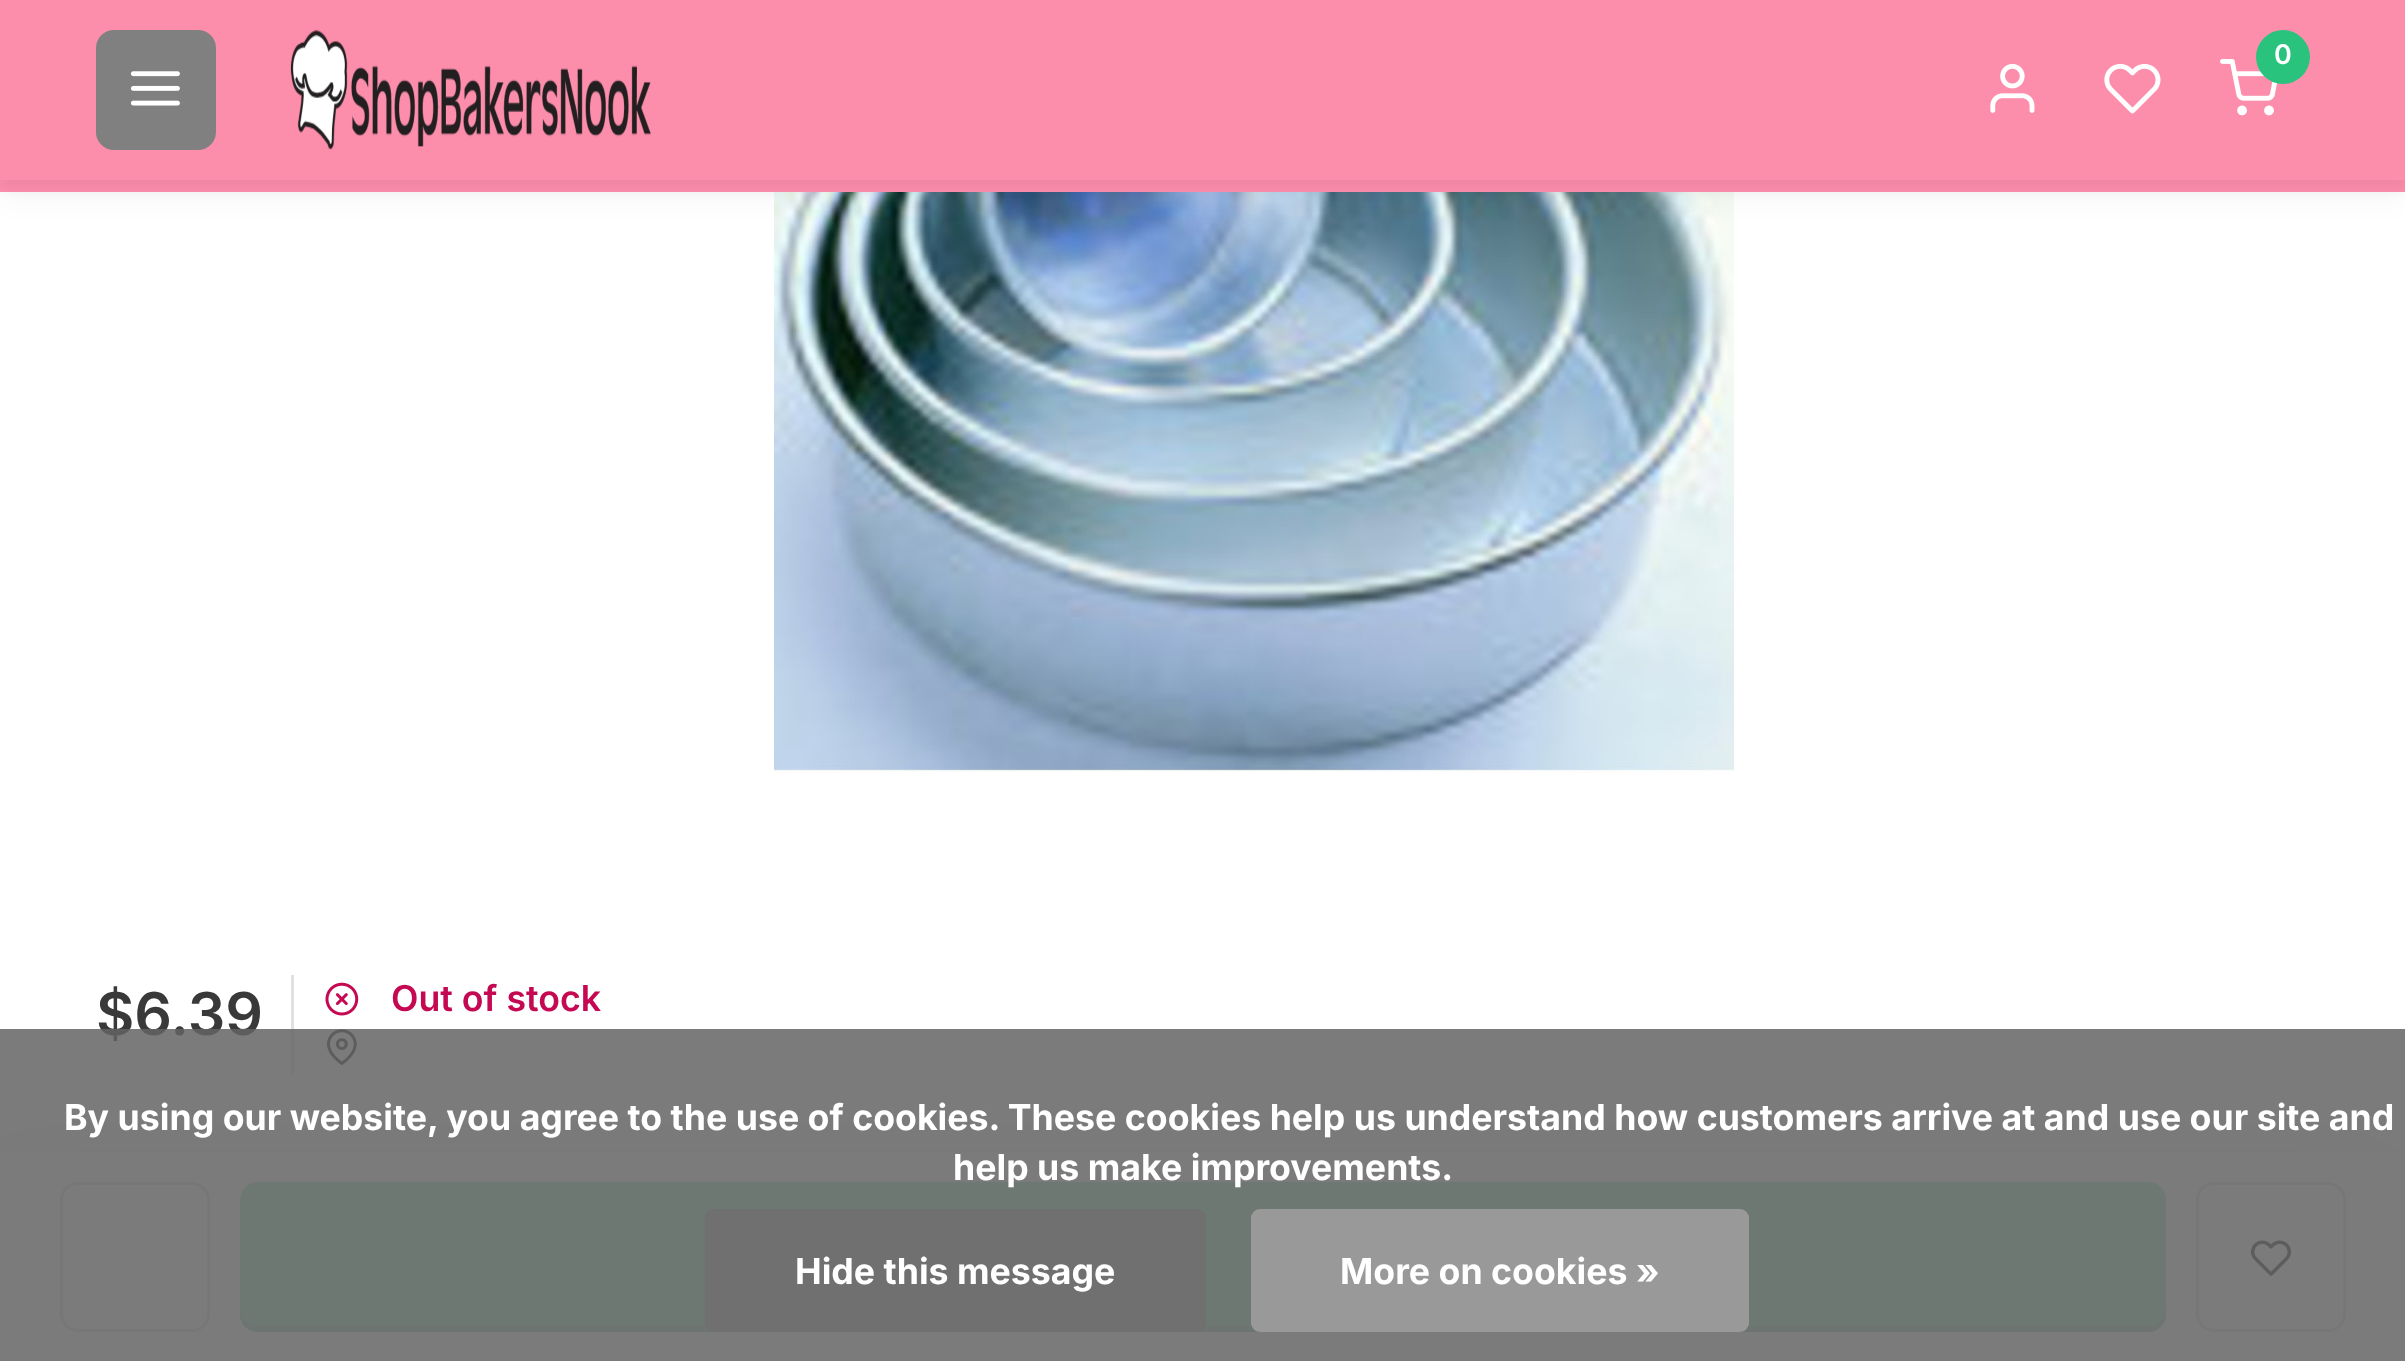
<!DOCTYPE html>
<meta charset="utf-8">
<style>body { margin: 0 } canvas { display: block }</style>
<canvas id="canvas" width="2405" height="1361"></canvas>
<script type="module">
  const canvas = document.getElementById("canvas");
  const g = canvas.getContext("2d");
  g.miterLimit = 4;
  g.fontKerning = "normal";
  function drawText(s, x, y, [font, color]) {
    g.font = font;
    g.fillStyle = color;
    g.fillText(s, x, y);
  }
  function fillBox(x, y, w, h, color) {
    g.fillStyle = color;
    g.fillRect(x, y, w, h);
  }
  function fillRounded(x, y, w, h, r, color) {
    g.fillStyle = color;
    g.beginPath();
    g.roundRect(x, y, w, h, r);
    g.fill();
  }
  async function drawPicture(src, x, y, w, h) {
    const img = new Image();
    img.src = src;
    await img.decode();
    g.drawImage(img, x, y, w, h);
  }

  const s1 = ["600 27px Inter", "#FFFFFF"];
  const s2 = ["600 59px Inter", "#393939"];
  const s3 = ["600 35.7px Inter", "#C50852"];
  const s4 = ["bold 35.7px Inter", "#FFFFFF"];

  fillBox(0, 0, 2405, 1361, "#FFFFFF");
  await drawPicture("pic6.png", 774, 192, 960, 581);
  g.fillStyle = "rgba(0, 0, 0, 0.05)";
  g.filter = "blur(15px)";
  g.beginPath();
  g.rect(0, 15, 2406, 180);
  g.fill();
  g.filter = "none";
  fillBox(0, 180, 2405, 12, "#FC8EAC");
  g.fillStyle = "rgba(0, 0, 0, 0.05)";
  g.filter = "blur(6px)";
  g.beginPath();
  g.rect(0, 9, 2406, 180);
  g.fill();
  g.filter = "none";
  fillBox(0, 0, 2405, 180, "#FC8EAC");
  fillRounded(96, 30, 120, 120, 18, "#808080");
  await drawPicture("pic1.png", 130, 71, 50, 35);
  await drawPicture("pic2.png", 290, 29, 361, 121);
  await drawPicture("pic3.png", 2220, 59, 57, 57);
  g.fillStyle = "#2AC37D";
  g.beginPath();
  g.arc(2283, 57, 27, 0, Math.PI * 2);
  g.fill();
  drawText("0", 2274, 64, s1);
  await drawPicture("pic4.png", 1990, 63, 45, 50);
  await drawPicture("pic5.png", 2104, 63, 57, 51);
  fillBox(291, 975, 3, 99, "#E1E1E1");
  drawText("$6.39", 96, 1035, s2);
  await drawPicture("pic7.png", 325, 982, 34, 34);
  drawText("Out of stock", 391, 1011, s3);
  await drawPicture("pic8.png", 327, 1029, 30, 36);
  g.fillStyle = "rgba(0, 0, 0, 0.15)";
  g.filter = "blur(45px)";
  g.beginPath();
  g.rect(-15, 1170, 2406, 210);
  g.fill();
  g.filter = "none";
  fillBox(0, 1152, 2405, 209, "#FFFFFF");
  g.beginPath();
  g.roundRect(61.5, 1183.5, 147, 147, 16.5);
  g.strokeStyle = "#E1E1E1";
  g.lineWidth = 3;
  g.stroke();
  fillRounded(240, 1182, 1926, 150, 18, "#AAE7CB");
  g.fillStyle = "#A9D0B9";
  g.beginPath();
  g.moveTo(240, 1308);
  g.lineTo(240, 1314);
  g.bezierCurveTo(240, 1324, 248, 1332, 258, 1332);
  g.lineTo(2148, 1332);
  g.bezierCurveTo(2158, 1332, 2166, 1324, 2166, 1314);
  g.lineTo(2166, 1308);
  g.bezierCurveTo(2166, 1318, 2158, 1326, 2148, 1326);
  g.lineTo(258, 1326);
  g.bezierCurveTo(248, 1326, 240, 1318, 240, 1308);
  g.closePath();
  g.fill();
  g.beginPath();
  g.roundRect(2197.5, 1183.5, 147, 147, 16.5);
  g.stroke();
  await drawPicture("pic9.png", 2250, 1240, 42, 36);
  fillBox(0, 1029, 2405, 332, "rgba(100, 100, 100, 0.85)");
  drawText("By using our website, you agree to the use of cookies. These cookies help us understand how customers arrive at and use our site and", 64, 1130, s4);
  drawText("help us make improvements.", 953, 1180, s4);
  fillRounded(705, 1209, 501, 123, 9, "#707070");
  drawText("Hide this message", 795, 1284, s4);
  fillRounded(1251, 1209, 498, 123, 9, "#999999");
  drawText("More on cookies »", 1340, 1284, s4);
</script>
